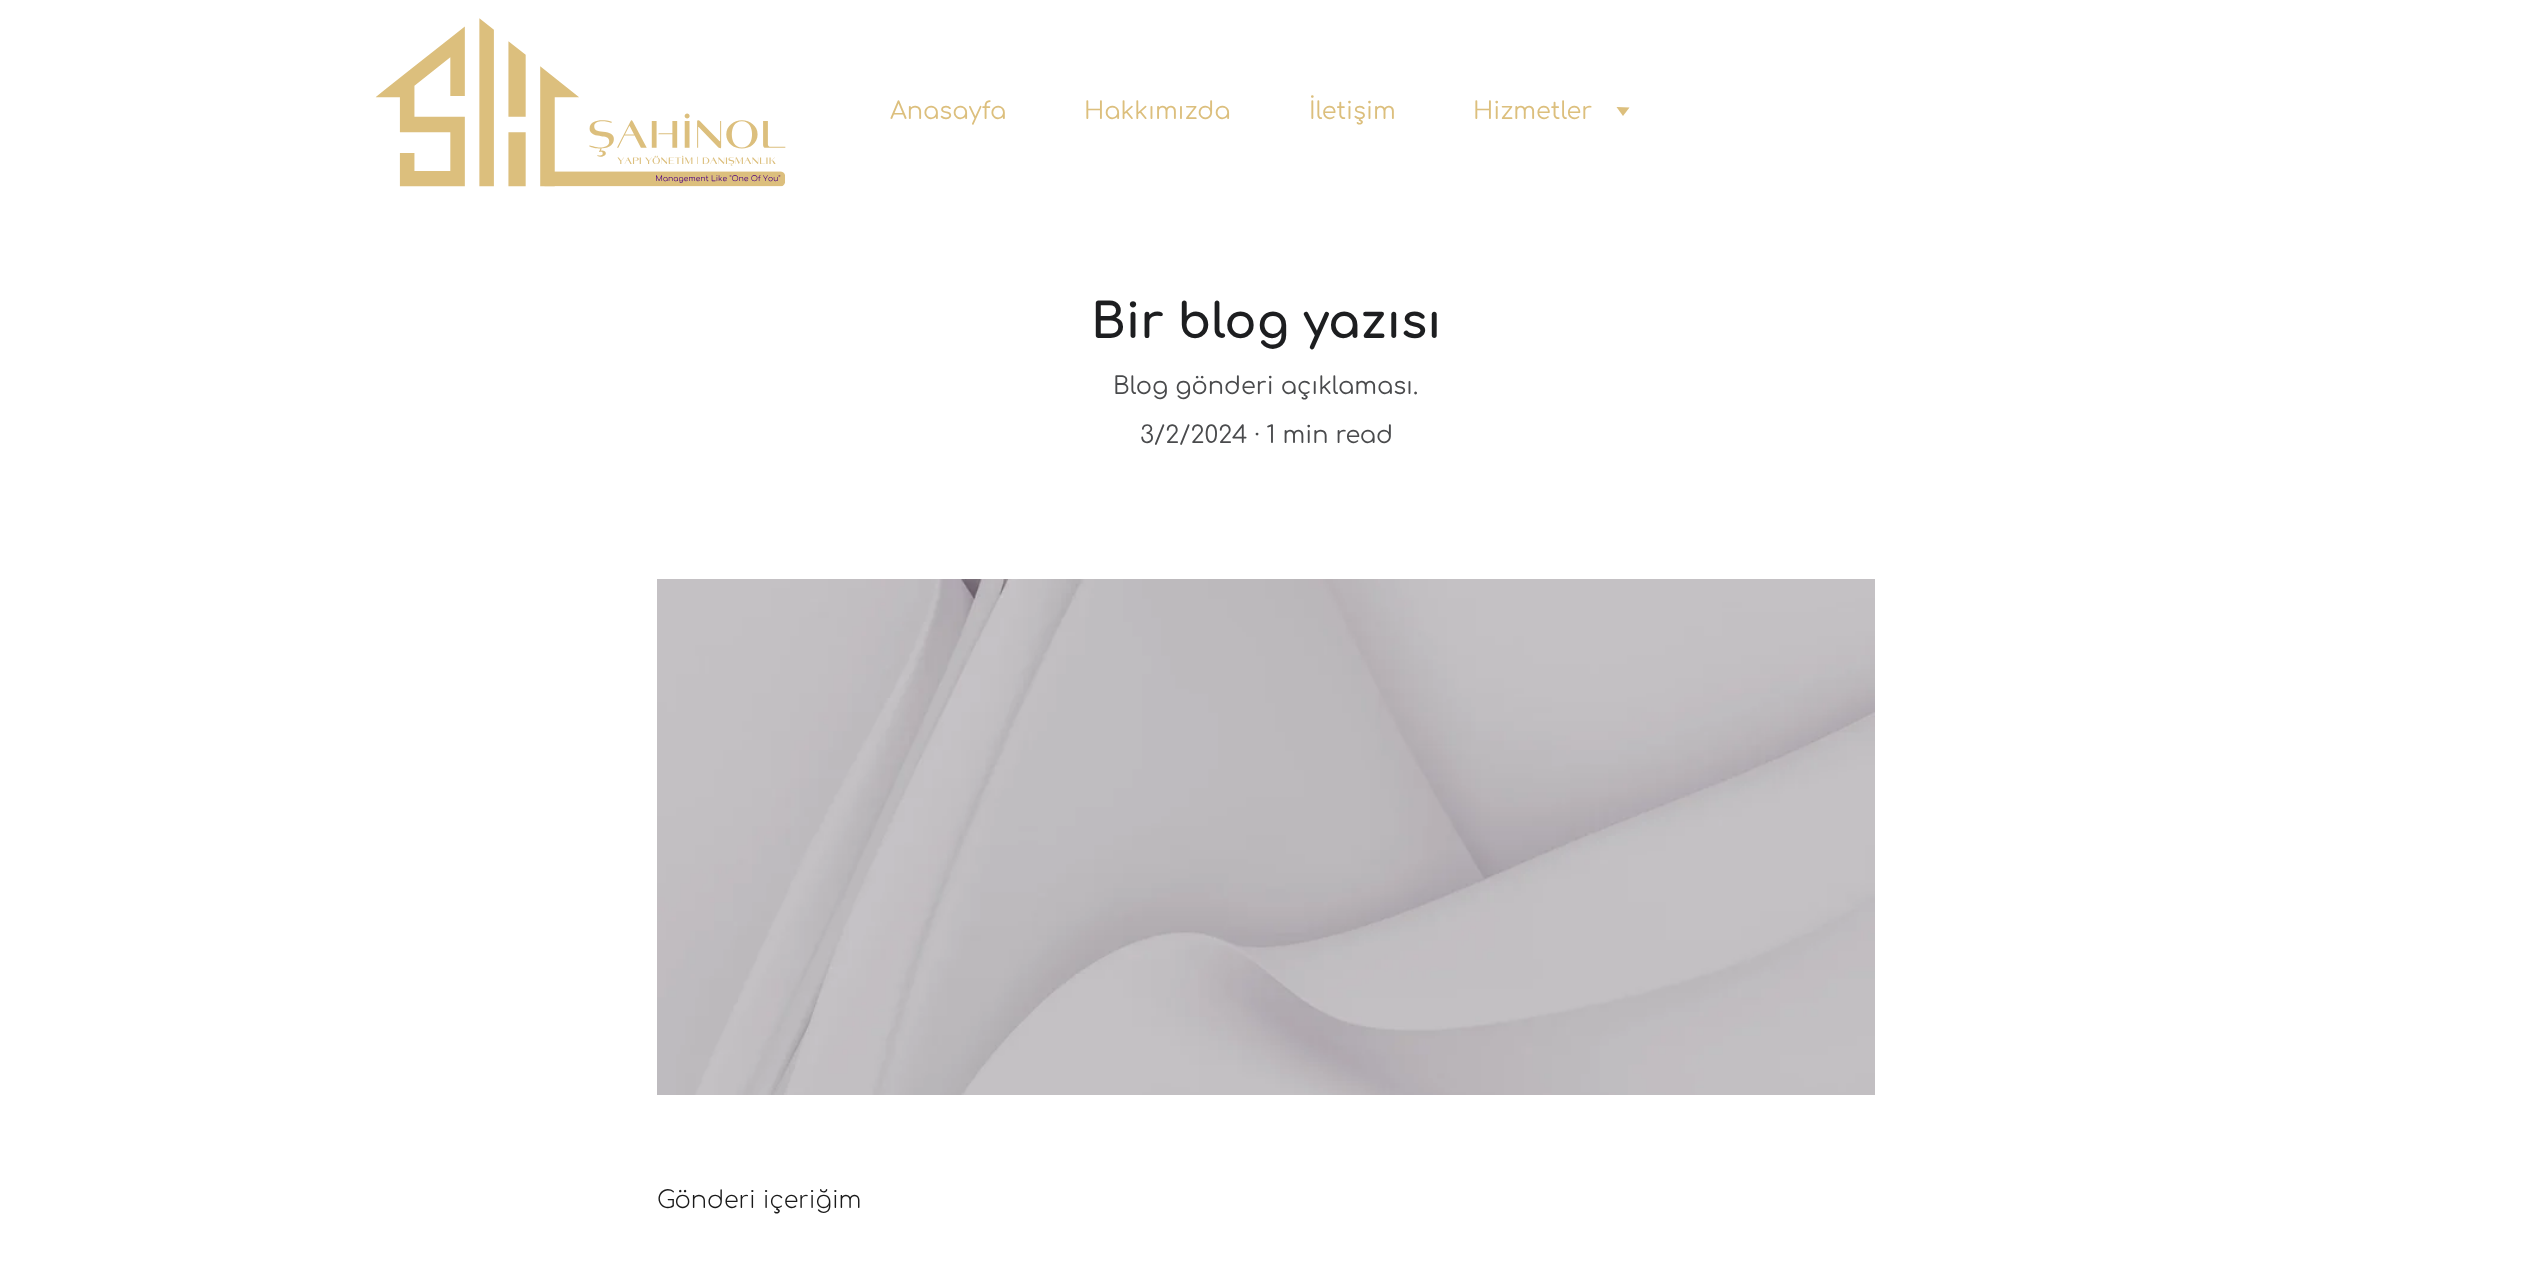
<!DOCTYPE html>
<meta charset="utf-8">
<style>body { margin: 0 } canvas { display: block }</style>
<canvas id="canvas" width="2532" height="1263"></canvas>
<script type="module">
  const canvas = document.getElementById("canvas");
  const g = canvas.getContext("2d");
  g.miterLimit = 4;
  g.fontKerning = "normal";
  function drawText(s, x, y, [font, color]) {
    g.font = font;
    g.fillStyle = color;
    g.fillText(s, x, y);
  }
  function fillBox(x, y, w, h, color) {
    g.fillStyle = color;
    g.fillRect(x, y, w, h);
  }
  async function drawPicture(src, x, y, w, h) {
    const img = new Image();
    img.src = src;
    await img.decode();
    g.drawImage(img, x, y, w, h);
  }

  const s1 = ["24px Comfortaa", "#DCBF7D"];
  const s2 = ["bold 48px Comfortaa", "#1D1E20"];
  const s3 = ["24px Comfortaa", "#4A4B4D"];
  const s4 = ["300 24px Comfortaa", "#1A1A1A"];

  fillBox(0, 0, 2532, 1263, "#FFFFFF");
  await drawPicture("pic1.png", 375, 18, 411, 169);
  drawText("Anasayfa", 890, 119, s1);
  drawText("Hakkımızda", 1084, 119, s1);
  drawText("İletişim", 1309, 119, s1);
  drawText("Hizmetler", 1473, 119, s1);
  g.beginPath();
  g.moveTo(1623, 116);
  g.lineTo(1616.5, 107);
  g.lineTo(1629.5, 107.5);
  g.closePath();
  g.fill();
  drawText("Bir blog yazısı", 1091, 338, s2);
  drawText("Blog gönderi açıklaması.", 1113, 394, s3);
  drawText("3/2/2024 · 1 min read", 1140, 443, s3);
  await drawPicture("pic2.png", 657, 579, 1218, 516);
  drawText("Gönderi içeriğim", 657, 1208, s4);
</script>
